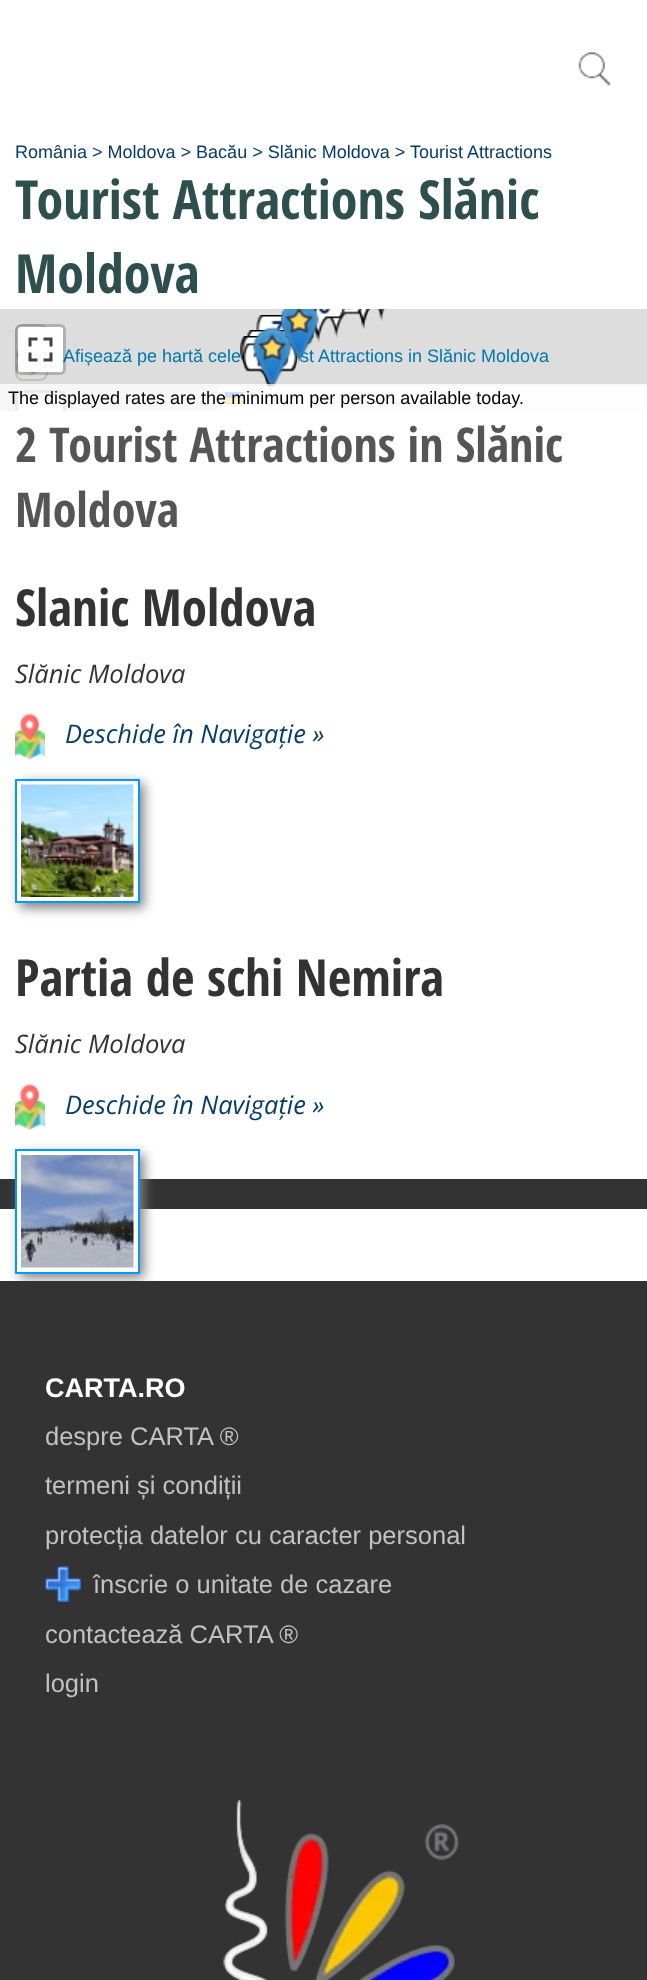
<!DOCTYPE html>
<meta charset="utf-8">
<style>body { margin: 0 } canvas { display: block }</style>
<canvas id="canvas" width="647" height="1980"></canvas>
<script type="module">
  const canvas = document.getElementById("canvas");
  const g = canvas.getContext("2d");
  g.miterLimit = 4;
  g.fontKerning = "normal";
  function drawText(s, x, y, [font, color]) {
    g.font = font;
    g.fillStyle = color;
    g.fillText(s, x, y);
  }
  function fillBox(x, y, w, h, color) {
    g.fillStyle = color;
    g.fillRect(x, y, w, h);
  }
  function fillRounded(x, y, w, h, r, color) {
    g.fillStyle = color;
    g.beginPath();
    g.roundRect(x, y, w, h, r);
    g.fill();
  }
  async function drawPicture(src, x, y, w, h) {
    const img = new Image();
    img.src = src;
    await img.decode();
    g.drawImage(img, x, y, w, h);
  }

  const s1 = ["18px Liberation Sans", "#073C68"];
  const s2 = ["bold 54px Open Sans Condensed", "#2F4F4F"];
  const s3 = ["18px Liberation Sans", "#0078A8"];
  const s4 = ["bold 48px Open Sans Condensed", "#555555"];
  const s5 = ["18px Liberation Sans", "#000000"];
  const s6 = ["bold 51px Open Sans Condensed", "#333333"];
  const s7 = ["italic 25.5px Open Sans", "#333333"];
  const s8 = ["italic 25.5px Open Sans", "#073C68"];
  const s9 = ["bold 27px Liberation Sans", "#FFFFFF"];
  const s10 = ["25.5px Liberation Sans", "#C2C2C2"];

  fillBox(0, 0, 647, 1980, "#FFFFFF");
  await drawPicture("pic1.png", 578, 51, 33, 35);
  drawText("România > Moldova > Bacău > Slănic Moldova >", 15, 158, s1);
  drawText("Tourist Attractions", 410, 158, s1);
  drawText("Tourist Attractions Slănic", 15, 219, s2);
  drawText("Moldova", 15, 293, s2);
  fillBox(0, 309, 647, 102, "#DDDDDD");
  await drawPicture("pic5.png", 358, 309, 13, 20);
  await drawPicture("pic7.png", 313, 314, 29, 25);
  await drawPicture("pic8.png", 358, 309, 13, 20);
  await drawPicture("pic4.png", 328, 309, 34, 29);
  await drawPicture("pic3.png", 311, 309, 34, 33);
  await drawPicture("pic10.png", 260, 318, 54, 27);
  await drawPicture("pic6.png", 256, 315, 55, 28);
  await drawPicture("pic12.png", 246, 330, 53, 51);
  drawText("Afișează pe hartă cele", 63, 362, s3);
  await drawPicture("pic13.png", 240, 336, 54, 51);
  await drawPicture("pic16.png", 243, 345, 54, 50);
  await drawPicture("pic14.png", 241, 336, 55, 51);
  await drawPicture("pic15.png", 243, 343, 54, 52);
  drawText("st Attractions in Slănic Moldova", 300, 362, s3);
  await drawPicture("pic2.png", 281, 309, 38, 53);
  await drawPicture("pic9.png", 377, 309, 8, 12);
  await drawPicture("pic11.png", 253, 327, 39, 62);
  g.beginPath();
  g.roundRect(16, 325, 31, 55, 7);
  g.strokeStyle = "#C0C0C0";
  g.lineWidth = 2;
  g.stroke();
  await drawPicture("pic18.png", 16, 347, 31, 29);
  g.beginPath();
  g.roundRect(16.5, 325.5, 48, 48, 4.5);
  g.strokeStyle = "rgba(0, 0, 0, 0.2)";
  g.lineWidth = 3;
  g.stroke();
  fillRounded(18, 327, 45, 45, 3, "#FFFFFF");
  await drawPicture("pic17.png", 28, 337, 25, 25);
  drawText("2 Tourist Attractions in Slănic", 15, 462, s4);
  g.save();
  g.beginPath();
  g.rect(0, 309, 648, 102);
  g.clip();
  g.beginPath();
  g.roundRect(16.5, 391.5, 48, 95, 4.5);
  g.strokeStyle = "#B1B1B1";
  g.stroke();
  g.restore();
  g.fillStyle = "#FFFFFF";
  g.beginPath();
  g.roundRect(18, 393, 45, 18, [3, 3, 0, 0]);
  g.fill();
  fillBox(218, 386, 429, 25, "rgba(255, 255, 255, 0.8)");
  fillBox(225, 392, 18, 6, "#4C7BE1");
  fillBox(225, 398, 18, 4, "#FFD500");
  fillBox(225, 402, 18, 2, "#E0BC00");
  fillBox(0, 384, 647, 27, "rgba(255, 255, 255, 0.75)");
  drawText("The displayed rates are the minimum per person available today.", 8, 404, s5);
  drawText("Moldova", 15, 527, s4);
  drawText("Slanic Moldova", 15, 626, s6);
  drawText("Slănic Moldova", 15, 683, s7);
  await drawPicture("pic19.png", 15, 713, 30, 47);
  drawText("Deschide în Navigație »", 65, 743, s8);
  g.fillStyle = "#818181";
  g.filter = "blur(6px)";
  g.beginPath();
  g.rect(20, 783, 124, 125);
  g.fill();
  g.filter = "none";
  g.fillStyle = "#FFFFFF";
  g.beginPath();
  g.rect(16, 780, 123, 122);
  g.fill();
  g.strokeStyle = "#0099FF";
  g.lineWidth = 2;
  g.stroke();
  await drawPicture("pic20.png", 21, 784, 113, 113);
  drawText("Partia de schi Nemira", 15, 996, s6);
  drawText("Slănic Moldova", 15, 1053, s7);
  await drawPicture("pic21.png", 15, 1084, 30, 46);
  drawText("Deschide în Navigație »", 65, 1114, s8);
  fillBox(0, 1179, 647, 30, "#333333");
  g.fillStyle = "#818181";
  g.filter = "blur(6px)";
  g.beginPath();
  g.rect(20, 1154, 124, 124);
  g.fill();
  g.filter = "none";
  g.fillStyle = "#FFFFFF";
  g.beginPath();
  g.rect(16, 1150, 123, 123);
  g.fill();
  g.stroke();
  await drawPicture("pic22.png", 21, 1155, 113, 113);
  fillBox(0, 1281, 647, 699, "#333333");
  drawText("CARTA.RO", 45, 1397, s9);
  drawText("despre CARTA ®", 45, 1445, s10);
  drawText("termeni și condiții", 45, 1494, s10);
  drawText("protecția datelor cu caracter personal", 45, 1544, s10);
  await drawPicture("pic23.png", 45, 1566, 36, 36);
  drawText("înscrie o unitate de cazare", 93, 1593, s10);
  drawText("contactează CARTA ®", 45, 1643, s10);
  drawText("login", 45, 1692, s10);
  await drawPicture("pic24.png", 223, 1800, 237, 180);
</script>
